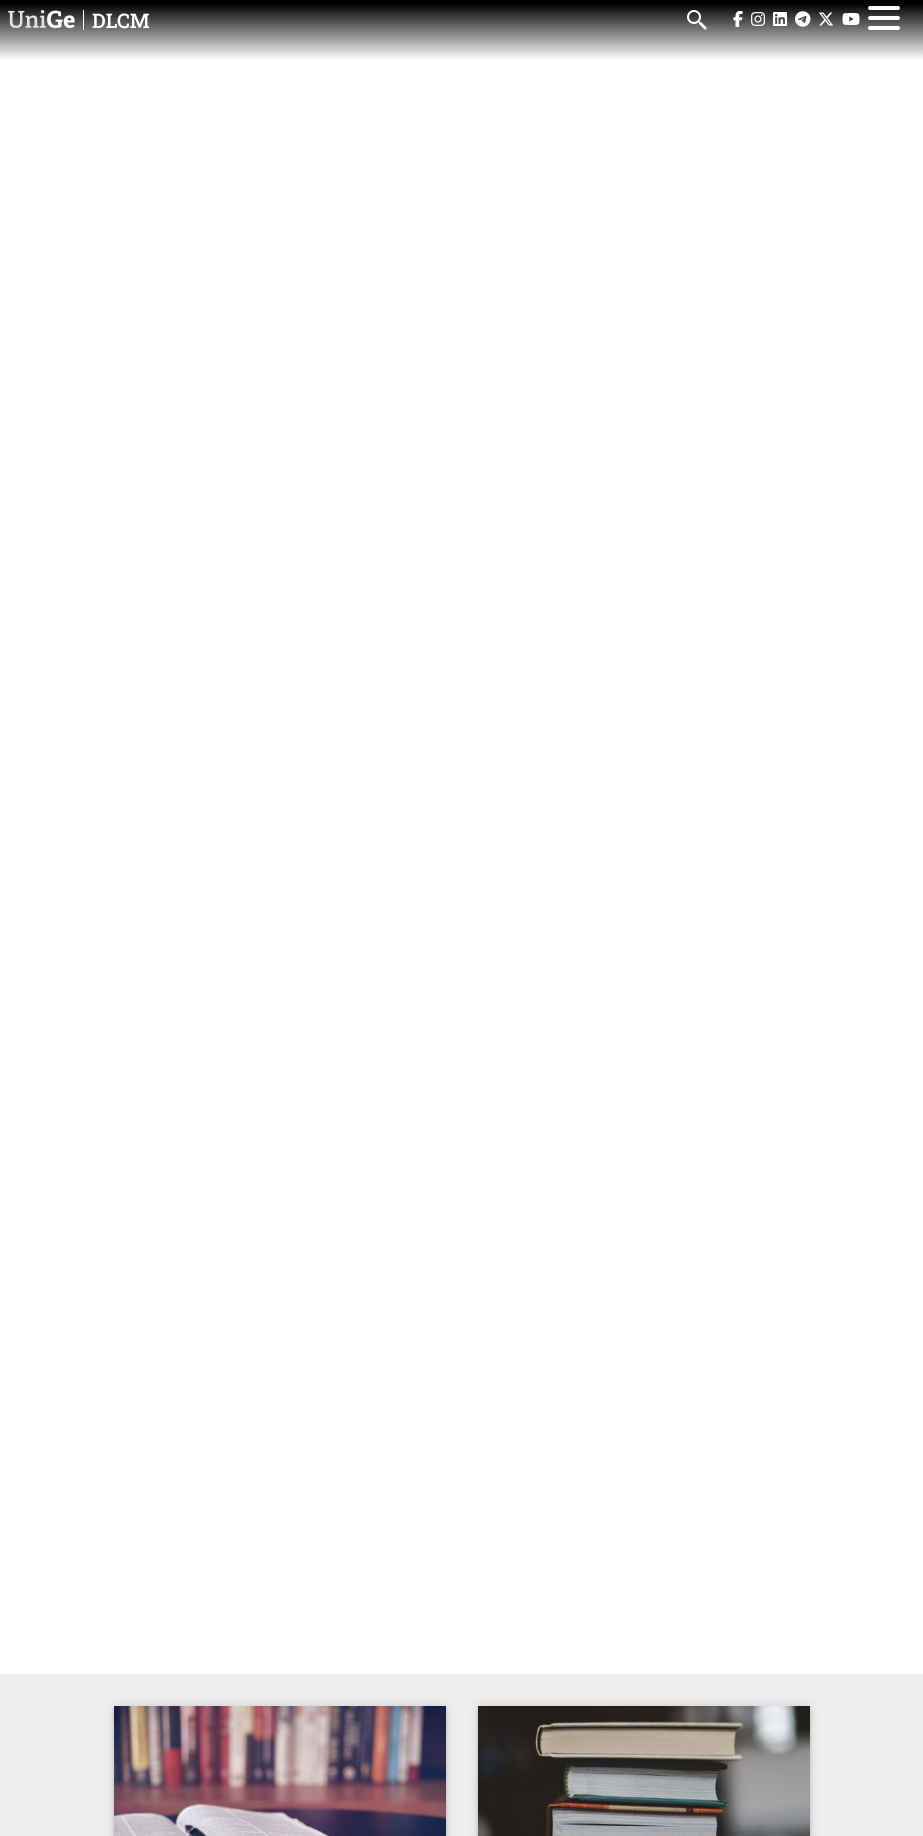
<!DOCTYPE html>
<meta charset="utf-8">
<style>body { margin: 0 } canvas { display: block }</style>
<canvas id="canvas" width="923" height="1836"></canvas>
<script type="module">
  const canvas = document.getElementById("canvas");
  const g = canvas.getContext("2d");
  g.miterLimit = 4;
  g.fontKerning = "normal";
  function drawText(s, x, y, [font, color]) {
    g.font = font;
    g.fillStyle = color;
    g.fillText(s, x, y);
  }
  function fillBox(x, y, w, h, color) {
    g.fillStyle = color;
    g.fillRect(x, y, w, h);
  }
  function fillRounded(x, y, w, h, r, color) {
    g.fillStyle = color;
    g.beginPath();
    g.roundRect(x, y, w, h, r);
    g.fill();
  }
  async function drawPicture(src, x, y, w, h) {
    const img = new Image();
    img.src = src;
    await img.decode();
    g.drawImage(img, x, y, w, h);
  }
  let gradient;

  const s1 = ["500 20px Roboto Slab", "#FFFFFF"];

  fillBox(0, 0, 923, 1836, "#FFFFFF");
  gradient = g.createLinearGradient(462, 0, 462, 60);
  gradient.addColorStop(0, "#000000");
  gradient.addColorStop(0.06, "#000000");
  gradient.addColorStop(1, "#FFFFFF");
  g.fillStyle = gradient;
  g.fillRect(0, 0, 923, 59);
  await drawPicture("pic1.png", 8, 10, 67, 18);
  fillBox(83, 10, 1, 20, "#FFFFFF");
  drawText("DLCM", 92, 28, s1);
  await drawPicture("pic2.png", 687, 10, 20, 20);
  await drawPicture("pic3.png", 733, 11, 10, 16);
  await drawPicture("pic4.png", 751, 12, 14, 14);
  await drawPicture("pic5.png", 773, 12, 14, 14);
  await drawPicture("pic6.png", 795, 11, 16, 16);
  await drawPicture("pic7.png", 819, 12, 15, 14);
  await drawPicture("pic8.png", 842, 13, 18, 12);
  fillRounded(868, 6, 32, 4, 2, "#FFFFFF");
  fillRounded(868, 16, 32, 4, 2, "#FFFFFF");
  fillRounded(868, 26, 32, 4, 2, "#FFFFFF");
  fillBox(0, 1674, 923, 162, "#EEEEEE");
  g.fillStyle = "rgba(0, 0, 0, 0.15)";
  g.filter = "blur(1.5px)";
  g.beginPath();
  g.rect(114, 1709, 332, 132);
  g.fill();
  g.filter = "none";
  g.filter = "blur(5px)";
  g.beginPath();
  g.rect(114, 1706, 332, 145);
  g.fill();
  g.filter = "none";
  await drawPicture("pic9.png", 114, 1706, 332, 130);
  g.filter = "blur(1.5px)";
  g.beginPath();
  g.rect(478, 1709, 332, 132);
  g.fill();
  g.filter = "none";
  g.filter = "blur(5px)";
  g.beginPath();
  g.rect(478, 1706, 332, 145);
  g.fill();
  g.filter = "none";
  await drawPicture("pic10.png", 478, 1706, 332, 130);
</script>
